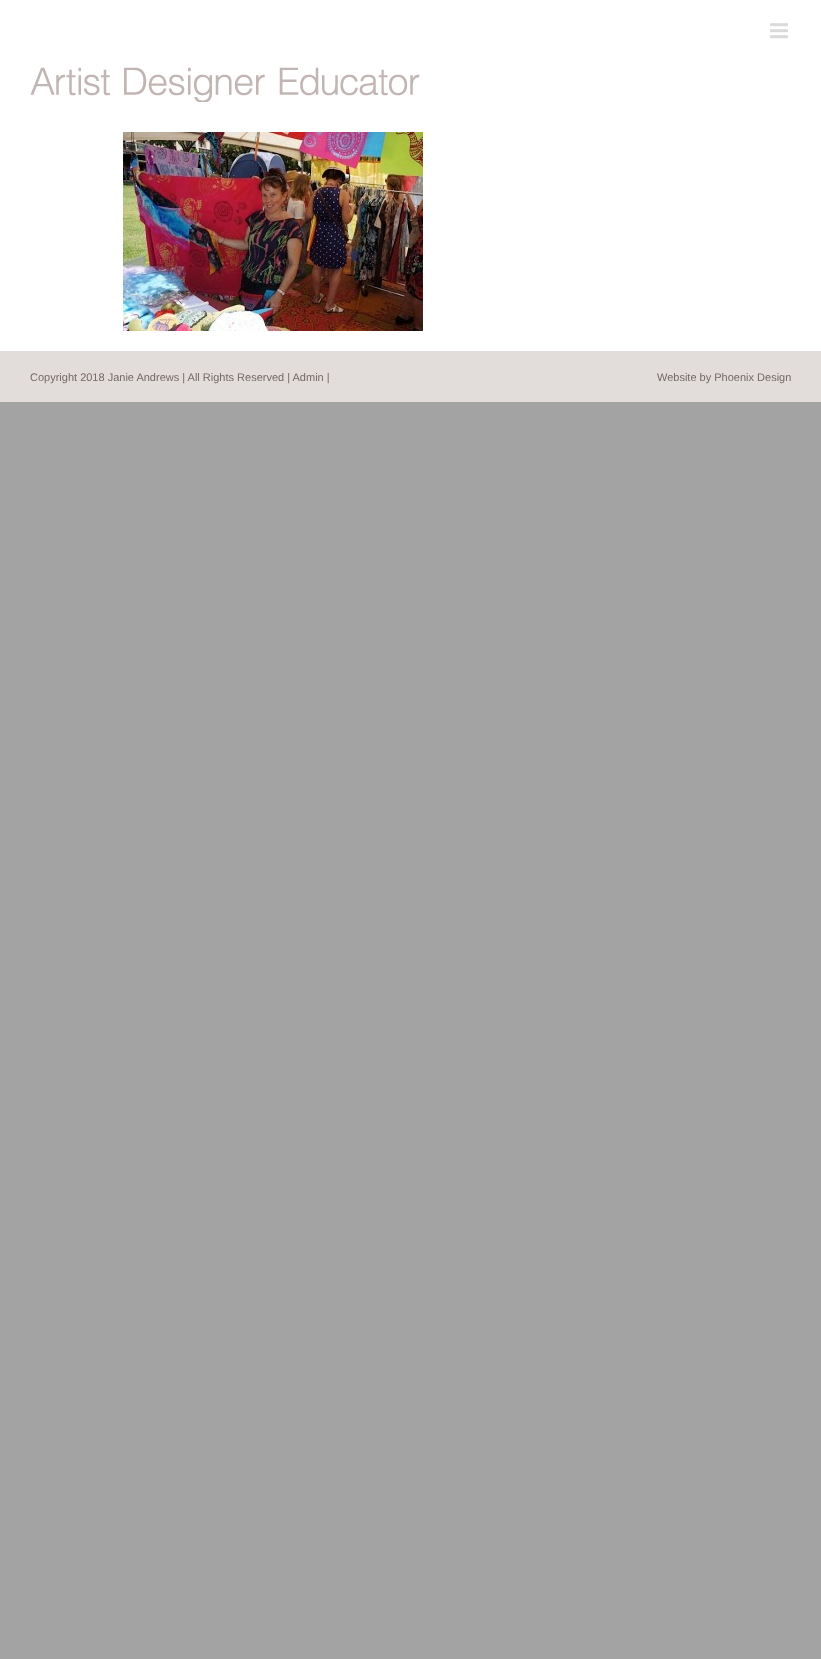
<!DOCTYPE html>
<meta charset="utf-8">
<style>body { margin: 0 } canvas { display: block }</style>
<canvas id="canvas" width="821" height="1659"></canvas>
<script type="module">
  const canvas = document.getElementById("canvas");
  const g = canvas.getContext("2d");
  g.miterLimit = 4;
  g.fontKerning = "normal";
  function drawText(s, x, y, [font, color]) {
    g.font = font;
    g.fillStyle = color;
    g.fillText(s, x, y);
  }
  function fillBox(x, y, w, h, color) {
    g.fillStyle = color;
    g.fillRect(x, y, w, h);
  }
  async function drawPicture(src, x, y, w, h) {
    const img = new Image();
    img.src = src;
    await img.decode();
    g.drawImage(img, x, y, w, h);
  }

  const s1 = ["11px Liberation Sans", "#766865"];

  fillBox(0, 0, 821, 1659, "#A3A3A3");
  fillBox(0, 0, 821, 351, "#FFFFFF");
  await drawPicture("pic1.png", 123, 132, 300, 199);
  await drawPicture("pic2.png", 770, 23, 18, 16);
  await drawPicture("pic3.png", 30, 67, 390, 35);
  fillBox(0, 351, 821, 51, "#E2DDDB");
  drawText("Copyright 2018 Janie Andrews | All Rights Reserved | Admin |", 30, 381, s1);
  drawText("Website by Phoenix Design", 657, 381, s1);
</script>
